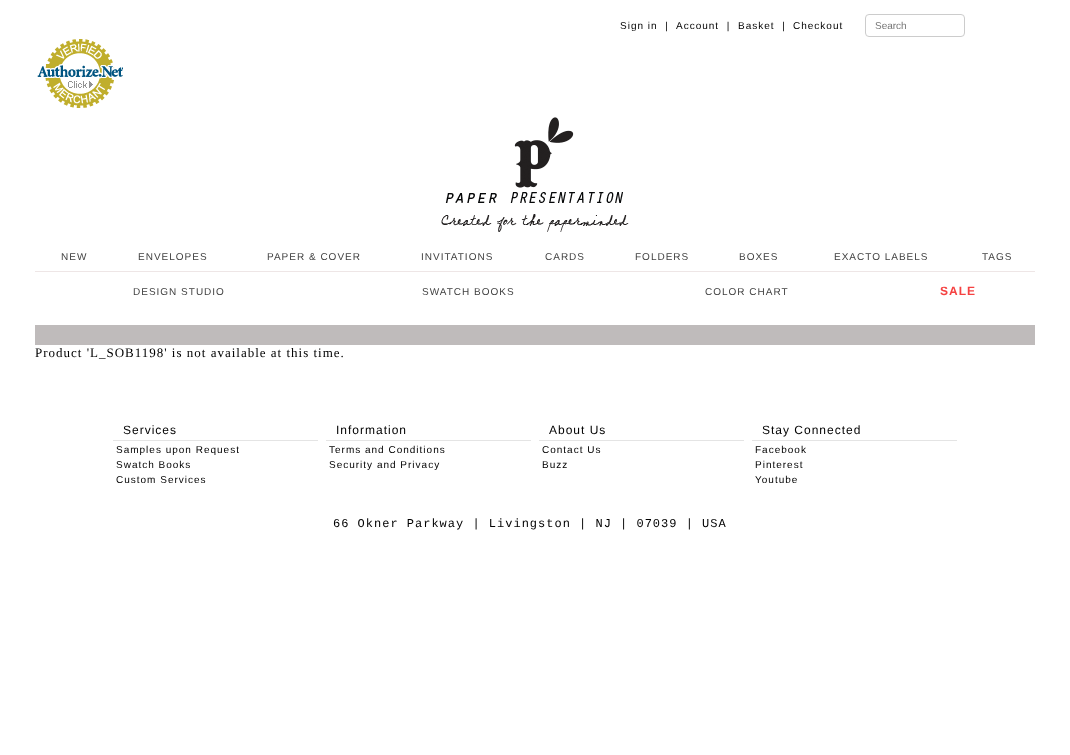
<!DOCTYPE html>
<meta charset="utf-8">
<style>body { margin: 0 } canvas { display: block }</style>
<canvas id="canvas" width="1070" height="755"></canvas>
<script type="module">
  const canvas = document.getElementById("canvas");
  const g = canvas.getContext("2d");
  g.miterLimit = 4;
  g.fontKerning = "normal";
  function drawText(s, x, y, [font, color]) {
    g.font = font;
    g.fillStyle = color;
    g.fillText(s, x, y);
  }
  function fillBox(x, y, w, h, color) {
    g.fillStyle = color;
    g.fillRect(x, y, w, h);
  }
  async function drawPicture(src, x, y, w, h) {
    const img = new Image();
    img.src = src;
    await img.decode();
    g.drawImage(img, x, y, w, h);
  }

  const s1 = ["10px Liberation Sans", "#000000"];
  const s2 = ["10px Liberation Sans", "#757575"];
  const s3 = ["10px Liberation Sans", "#424242"];
  const s4 = ["bold 12px Liberation Sans", "#F54242"];
  const s5 = ["13px Liberation Serif", "#000000"];
  const s6 = ["12px Liberation Sans", "#000000"];
  const s7 = ["12px Liberation Mono", "#000000"];

  fillBox(0, 0, 1070, 755, "#FFFFFF");
  g.letterSpacing = "1px";
  drawText("Sign in  |", 620, 29, s1);
  drawText("Account  |", 676, 29, s1);
  drawText("Basket  |", 738, 29, s1);
  drawText("Checkout", 793, 29, s1);
  g.beginPath();
  g.roundRect(865.5, 14.5, 99, 22, 3.5);
  g.strokeStyle = "#CCCCCC";
  g.stroke();
  g.letterSpacing = "0px";
  drawText("Search", 875, 29, s2);
  await drawPicture("pic1.png", 37, 39, 86, 69);
  await drawPicture("pic2.png", 441, 117, 188, 115);
  fillBox(35, 271, 1000, 1, "#EEE6E6");
  g.letterSpacing = "1px";
  drawText("NEW", 61, 260, s3);
  drawText("ENVELOPES", 138, 260, s3);
  drawText("PAPER & COVER", 267, 260, s3);
  drawText("INVITATIONS", 421, 260, s3);
  drawText("CARDS", 545, 260, s3);
  drawText("FOLDERS", 635, 260, s3);
  drawText("BOXES", 739, 260, s3);
  drawText("EXACTO LABELS", 834, 260, s3);
  drawText("TAGS", 982, 260, s3);
  drawText("DESIGN STUDIO", 133, 295, s3);
  drawText("SWATCH BOOKS", 422, 295, s3);
  drawText("COLOR CHART", 705, 295, s3);
  drawText("SALE", 940, 295, s4);
  fillBox(35, 325, 1000, 20, "#BFBBBB");
  drawText("Product 'L_SOB1198' is not available at this time.", 35, 357, s5);
  fillBox(113, 440, 205, 1, "#E4E4E4");
  drawText("Services", 123, 434, s6);
  drawText("Samples upon Request", 116, 453, s1);
  drawText("Swatch Books", 116, 468, s1);
  drawText("Custom Services", 116, 483, s1);
  fillBox(326, 440, 205, 1, "#E4E4E4");
  drawText("Information", 336, 434, s6);
  drawText("Terms and Conditions", 329, 453, s1);
  drawText("Security and Privacy", 329, 468, s1);
  fillBox(539, 440, 205, 1, "#E4E4E4");
  drawText("About Us", 549, 434, s6);
  drawText("Contact Us", 542, 453, s1);
  drawText("Buzz", 542, 468, s1);
  fillBox(752, 440, 205, 1, "#E4E4E4");
  drawText("Stay Connected", 762, 434, s6);
  drawText("Facebook", 755, 453, s1);
  drawText("Pinterest", 755, 468, s1);
  drawText("Youtube", 755, 483, s1);
  drawText("66 Okner Parkway | Livingston | NJ | 07039 | USA", 333, 527, s7);
</script>
